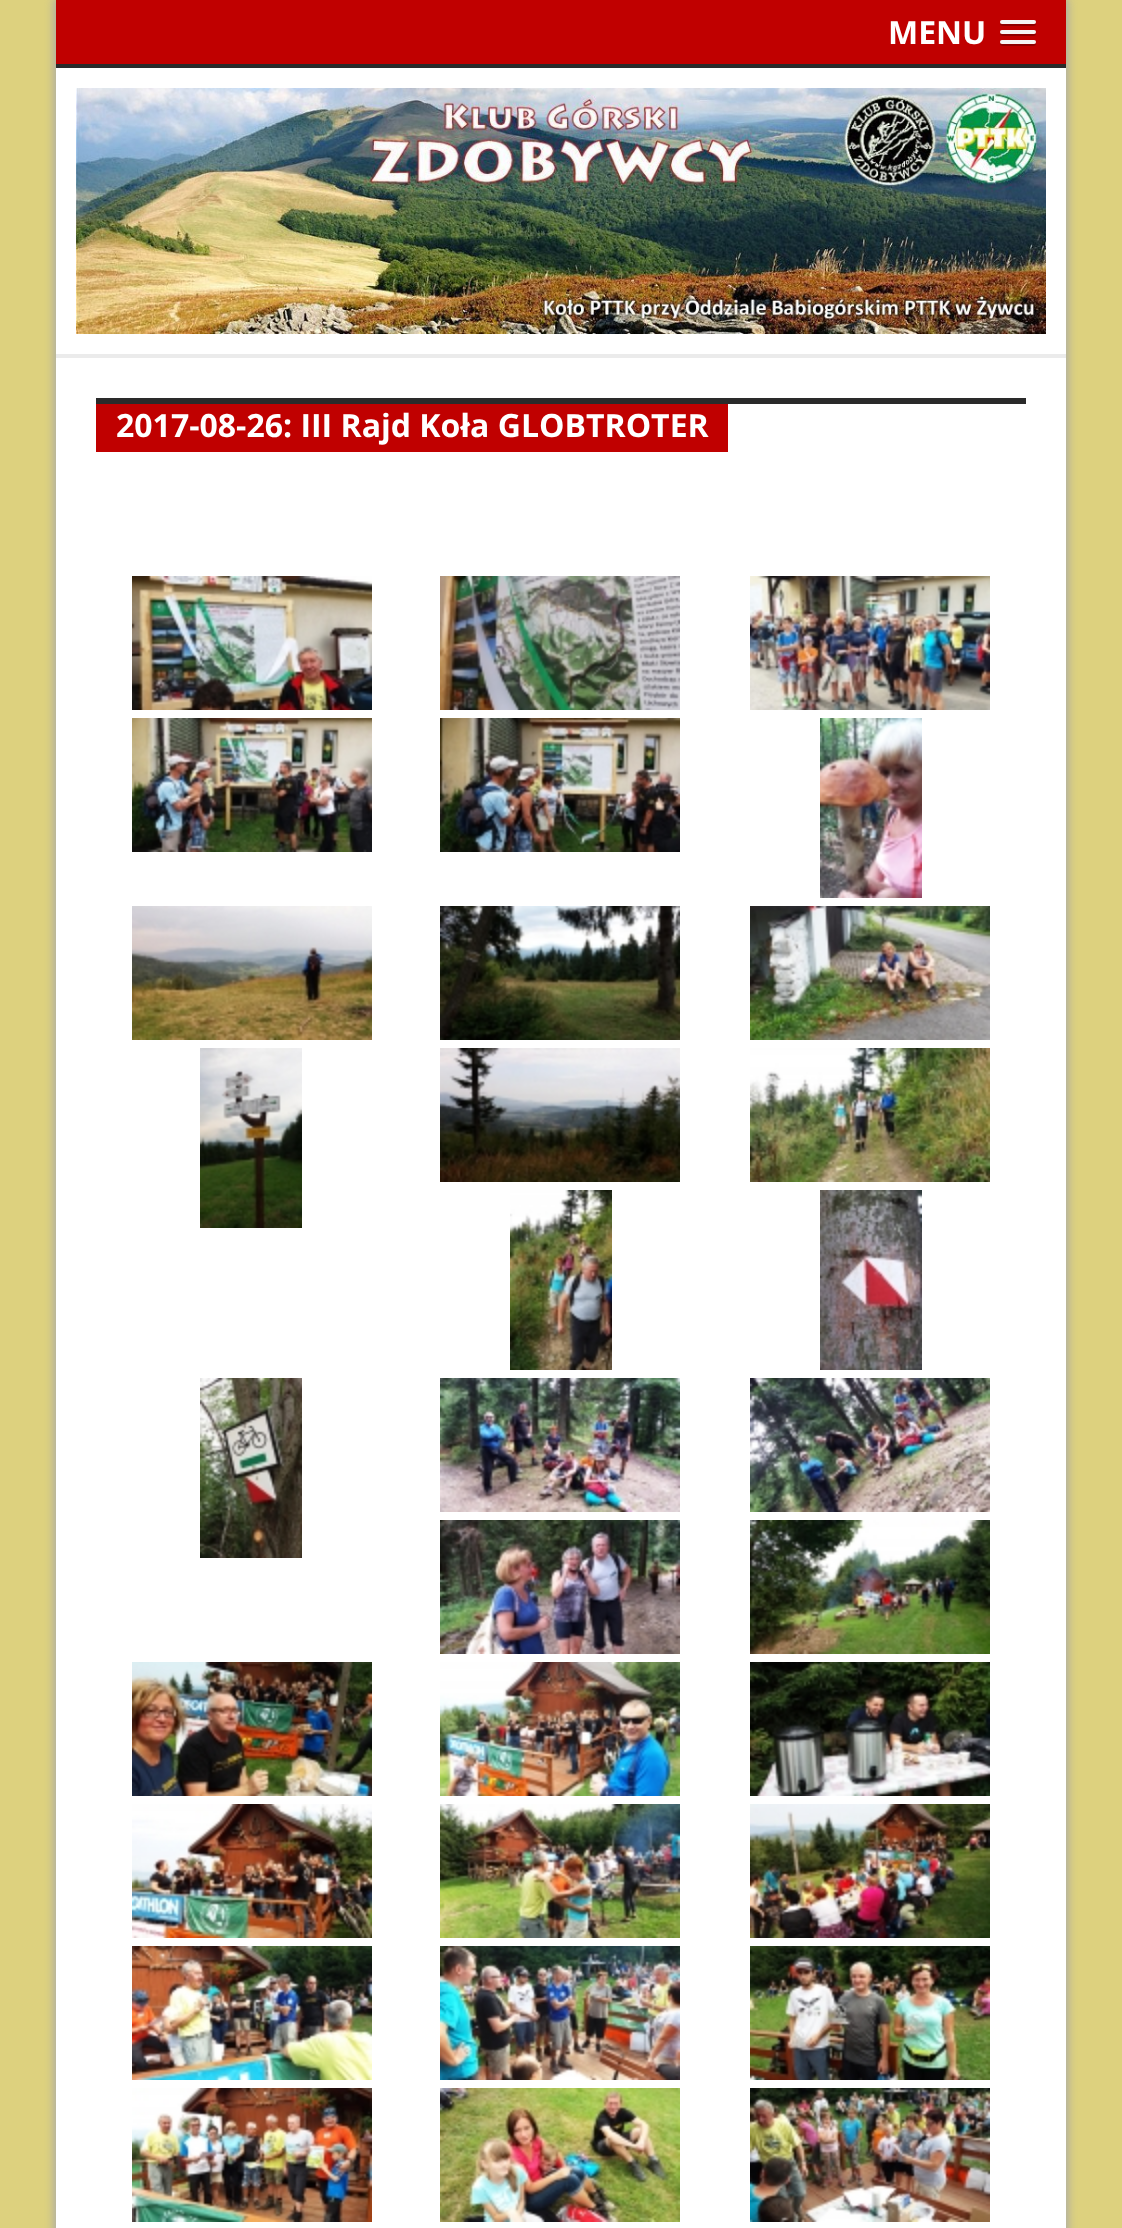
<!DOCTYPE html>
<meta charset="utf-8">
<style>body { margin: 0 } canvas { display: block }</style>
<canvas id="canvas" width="1122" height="2228"></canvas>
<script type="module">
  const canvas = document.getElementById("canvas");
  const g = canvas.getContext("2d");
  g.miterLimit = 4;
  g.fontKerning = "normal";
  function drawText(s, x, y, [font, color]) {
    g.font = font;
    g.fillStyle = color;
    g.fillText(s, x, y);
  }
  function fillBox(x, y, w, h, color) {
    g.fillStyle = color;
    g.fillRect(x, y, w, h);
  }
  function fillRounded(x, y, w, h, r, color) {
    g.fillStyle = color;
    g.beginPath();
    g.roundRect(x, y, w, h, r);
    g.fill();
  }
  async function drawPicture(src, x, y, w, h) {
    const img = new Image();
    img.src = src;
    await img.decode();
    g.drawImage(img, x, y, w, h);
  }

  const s1 = ["bold 32px Open Sans", "#FFFFFF"];

  fillBox(0, 0, 1122, 2228, "#DDD17E");
  g.fillStyle = "#A8A8A8";
  g.filter = "blur(5px)";
  g.beginPath();
  g.rect(54, -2, 1014, 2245);
  g.fill();
  g.filter = "none";
  fillBox(56, 0, 1010, 64, "#C00000");
  fillBox(56, 64, 1010, 4, "#2A2A2A");
  drawText("MENU", 888, 44, s1);
  g.fillStyle = "#900000";
  g.beginPath();
  g.moveTo(1000.5, 23);
  g.bezierCurveTo(998, 27, 1007, 26, 1007.5, 26);
  g.lineTo(1028.5, 26);
  g.bezierCurveTo(1029, 26, 1038, 27, 1035.5, 23);
  g.bezierCurveTo(1035.5, 23.5, 1034.5, 24, 1034, 24);
  g.lineTo(1002, 24);
  g.bezierCurveTo(1001.5, 24, 1000.5, 23.5, 1000.5, 23);
  g.closePath();
  g.fill();
  fillRounded(1000, 20, 36, 4, 2, "#F5F5F5");
  g.fillStyle = "#900000";
  g.beginPath();
  g.moveTo(1000.5, 33);
  g.bezierCurveTo(998, 37, 1007, 36, 1007.5, 36);
  g.lineTo(1028.5, 36);
  g.bezierCurveTo(1029, 36, 1038, 37, 1035.5, 33);
  g.bezierCurveTo(1035.5, 33.5, 1034.5, 34, 1034, 34);
  g.lineTo(1002, 34);
  g.bezierCurveTo(1001.5, 34, 1000.5, 33.5, 1000.5, 33);
  g.closePath();
  g.fill();
  fillRounded(1000, 30, 36, 4, 2, "#F5F5F5");
  g.fillStyle = "#900000";
  g.beginPath();
  g.moveTo(1000.5, 43);
  g.bezierCurveTo(998, 47, 1007, 46, 1007.5, 46);
  g.lineTo(1028.5, 46);
  g.bezierCurveTo(1029, 46, 1038, 47, 1035.5, 43);
  g.bezierCurveTo(1035.5, 43.5, 1034.5, 44, 1034, 44);
  g.lineTo(1002, 44);
  g.bezierCurveTo(1001.5, 44, 1000.5, 43.5, 1000.5, 43);
  g.closePath();
  g.fill();
  fillRounded(1000, 40, 36, 4, 2, "#F5F5F5");
  fillBox(56, 68, 1010, 286, "#FFFFFF");
  fillBox(56, 354, 1010, 4, "#EBEBEB");
  await drawPicture("pic1.png", 76, 88, 970, 246);
  fillBox(56, 358, 1010, 1870, "#FFFFFF");
  fillBox(96, 398, 930, 6, "#2A2A2A");
  fillBox(96, 404, 632, 48, "#C00000");
  drawText("2017-08-26: III Rajd Koła GLOBTROTER", 116, 437, s1);
  await drawPicture("pic2.png", 132, 576, 240, 134);
  await drawPicture("pic3.png", 440, 576, 240, 134);
  await drawPicture("pic4.png", 750, 576, 240, 134);
  await drawPicture("pic5.png", 132, 718, 240, 134);
  await drawPicture("pic6.png", 440, 718, 240, 134);
  await drawPicture("pic7.png", 820, 718, 102, 180);
  await drawPicture("pic8.png", 132, 906, 240, 134);
  await drawPicture("pic9.png", 440, 906, 240, 134);
  await drawPicture("pic10.png", 750, 906, 240, 134);
  await drawPicture("pic11.png", 200, 1048, 102, 180);
  await drawPicture("pic12.png", 440, 1048, 240, 134);
  await drawPicture("pic13.png", 750, 1048, 240, 134);
  await drawPicture("pic14.png", 510, 1190, 102, 180);
  await drawPicture("pic15.png", 820, 1190, 102, 180);
  await drawPicture("pic16.png", 200, 1378, 102, 180);
  await drawPicture("pic17.png", 440, 1378, 240, 134);
  await drawPicture("pic18.png", 750, 1378, 240, 134);
  await drawPicture("pic19.png", 440, 1520, 240, 134);
  await drawPicture("pic20.png", 750, 1520, 240, 134);
  await drawPicture("pic21.png", 132, 1662, 240, 134);
  await drawPicture("pic22.png", 440, 1662, 240, 134);
  await drawPicture("pic23.png", 750, 1662, 240, 134);
  await drawPicture("pic24.png", 132, 1804, 240, 134);
  await drawPicture("pic25.png", 440, 1804, 240, 134);
  await drawPicture("pic26.png", 750, 1804, 240, 134);
  await drawPicture("pic27.png", 132, 1946, 240, 134);
  await drawPicture("pic28.png", 440, 1946, 240, 134);
  await drawPicture("pic29.png", 750, 1946, 240, 134);
  await drawPicture("pic30.png", 132, 2088, 240, 134);
  await drawPicture("pic31.png", 440, 2088, 240, 134);
  await drawPicture("pic32.png", 750, 2088, 240, 134);
</script>
